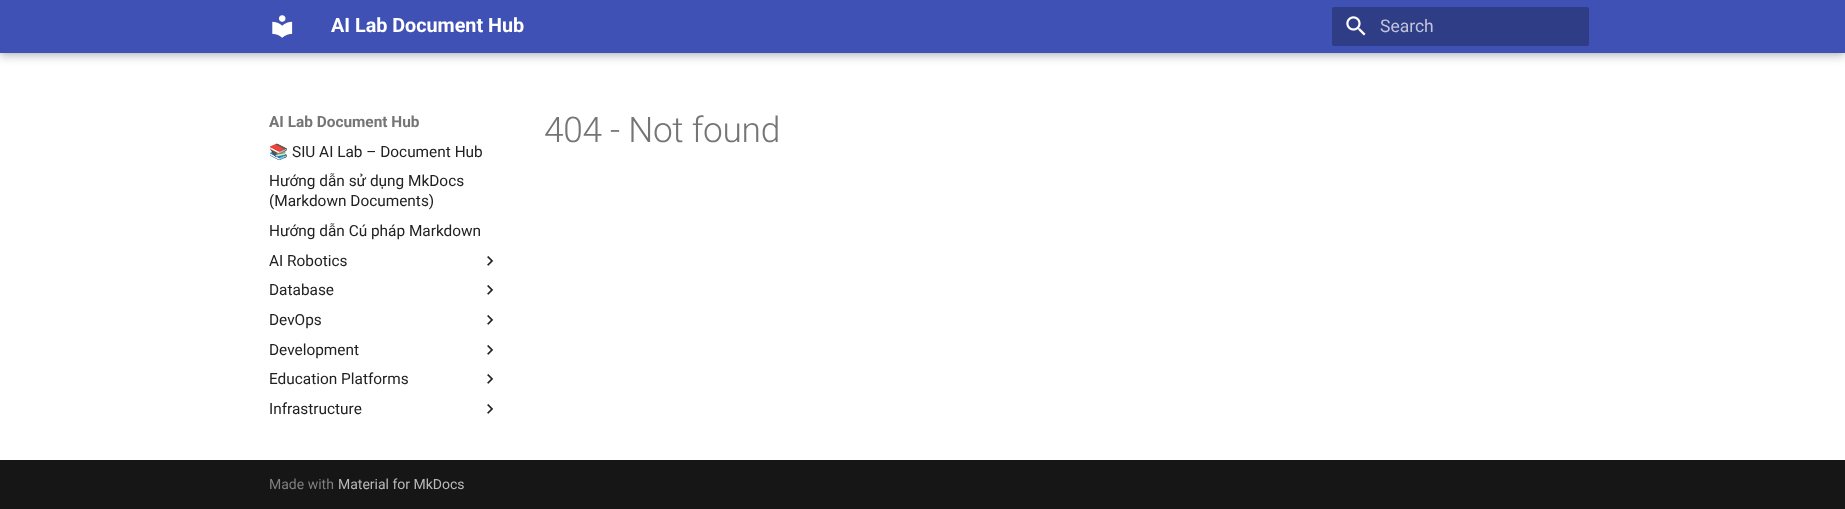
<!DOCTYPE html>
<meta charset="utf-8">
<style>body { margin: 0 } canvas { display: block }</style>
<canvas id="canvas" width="1845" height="509"></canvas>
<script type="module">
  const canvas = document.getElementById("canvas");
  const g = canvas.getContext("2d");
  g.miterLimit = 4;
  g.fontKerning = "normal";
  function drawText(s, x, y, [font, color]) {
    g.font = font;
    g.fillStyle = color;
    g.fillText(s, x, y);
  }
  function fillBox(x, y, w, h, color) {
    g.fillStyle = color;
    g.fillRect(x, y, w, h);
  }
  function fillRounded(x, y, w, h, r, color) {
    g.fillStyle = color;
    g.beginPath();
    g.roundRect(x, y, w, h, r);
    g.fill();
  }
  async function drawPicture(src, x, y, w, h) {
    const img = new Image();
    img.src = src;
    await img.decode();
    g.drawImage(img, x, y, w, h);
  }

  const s1 = ["bold 19.75px Roboto", "#FFFFFF"];
  const s2 = ["17.5px Roboto", "#C1C5DB"];
  const s3 = ["bold 15.4px Roboto", "#757575"];
  const s4 = ["15.4px Noto Color Emoji", "#212121"];
  const s5 = ["15.4px Roboto", "#212121"];
  const s6 = ["300 35.25px Roboto", "#757575"];
  const s7 = ["14px Roboto", "#7F7F7F"];
  const s8 = ["14px Roboto", "#B9B9B9"];

  fillBox(0, 0, 1845, 509, "#FFFFFF");
  g.fillStyle = "rgba(0, 0, 0, 0.2)";
  g.filter = "blur(4.5px)";
  g.beginPath();
  g.rect(0, 4, 1845, 53);
  g.fill();
  g.filter = "none";
  g.fillStyle = "rgba(0, 0, 0, 0.1)";
  g.filter = "blur(2px)";
  g.beginPath();
  g.rect(0, 0, 1845, 53);
  g.fill();
  g.filter = "none";
  fillBox(0, 0, 1845, 53, "#4051B5");
  await drawPicture("pic1.png", 272, 15, 21, 23);
  drawText("AI Lab Document Hub", 331, 32, s1);
  fillRounded(1332, 7, 257, 39, 2, "#2F3C86");
  await drawPicture("pic2.png", 1346, 16, 20, 20);
  drawText("Search", 1380, 32, s2);
  g.save();
  g.beginPath();
  g.rect(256, 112, 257, 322);
  g.clip();
  g.beginPath();
  g.moveTo(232, 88);
  g.lineTo(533, 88);
  g.lineTo(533, 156);
  g.lineTo(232, 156);
  g.closePath();
  g.moveTo(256, 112);
  g.lineTo(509, 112);
  g.lineTo(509, 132);
  g.lineTo(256, 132);
  g.closePath();
  g.clip("evenodd");
  g.fillStyle = "#FFFFFF";
  g.filter = "blur(4.5px)";
  g.beginPath();
  g.rect(247, 103, 271, 38);
  g.fill();
  g.filter = "none";
  g.restore();
  drawText("AI Lab Document Hub", 269, 127, s3);
  drawText("📚", 269, 157, s4);
  drawText("SIU AI Lab – Document Hub", 292, 157, s5);
  drawText("Hướng dẫn sử dụng MkDocs", 269, 186, s5);
  drawText("(Markdown Documents)", 269, 206, s5);
  drawText("Hướng dẫn Cú pháp Markdown", 269, 236, s5);
  drawText("AI Robotics", 269, 266, s5);
  await drawPicture("pic3.png", 487, 256, 7, 10);
  drawText("Database", 269, 295, s5);
  await drawPicture("pic3.png", 487, 285, 7, 10);
  drawText("DevOps", 269, 325, s5);
  await drawPicture("pic3.png", 487, 315, 7, 10);
  drawText("Development", 269, 355, s5);
  await drawPicture("pic3.png", 487, 345, 7, 10);
  drawText("Education Platforms", 269, 384, s5);
  await drawPicture("pic3.png", 487, 374, 7, 10);
  drawText("Infrastructure", 269, 414, s5);
  await drawPicture("pic3.png", 487, 404, 7, 10);
  g.letterSpacing = "-0.3px";
  drawText("404 - Not found", 544, 142, s6);
  fillBox(0, 460, 1845, 49, "#161616");
  g.letterSpacing = "0px";
  drawText("Made with", 269, 489, s7);
  drawText("Material for MkDocs", 338, 489, s8);
</script>
